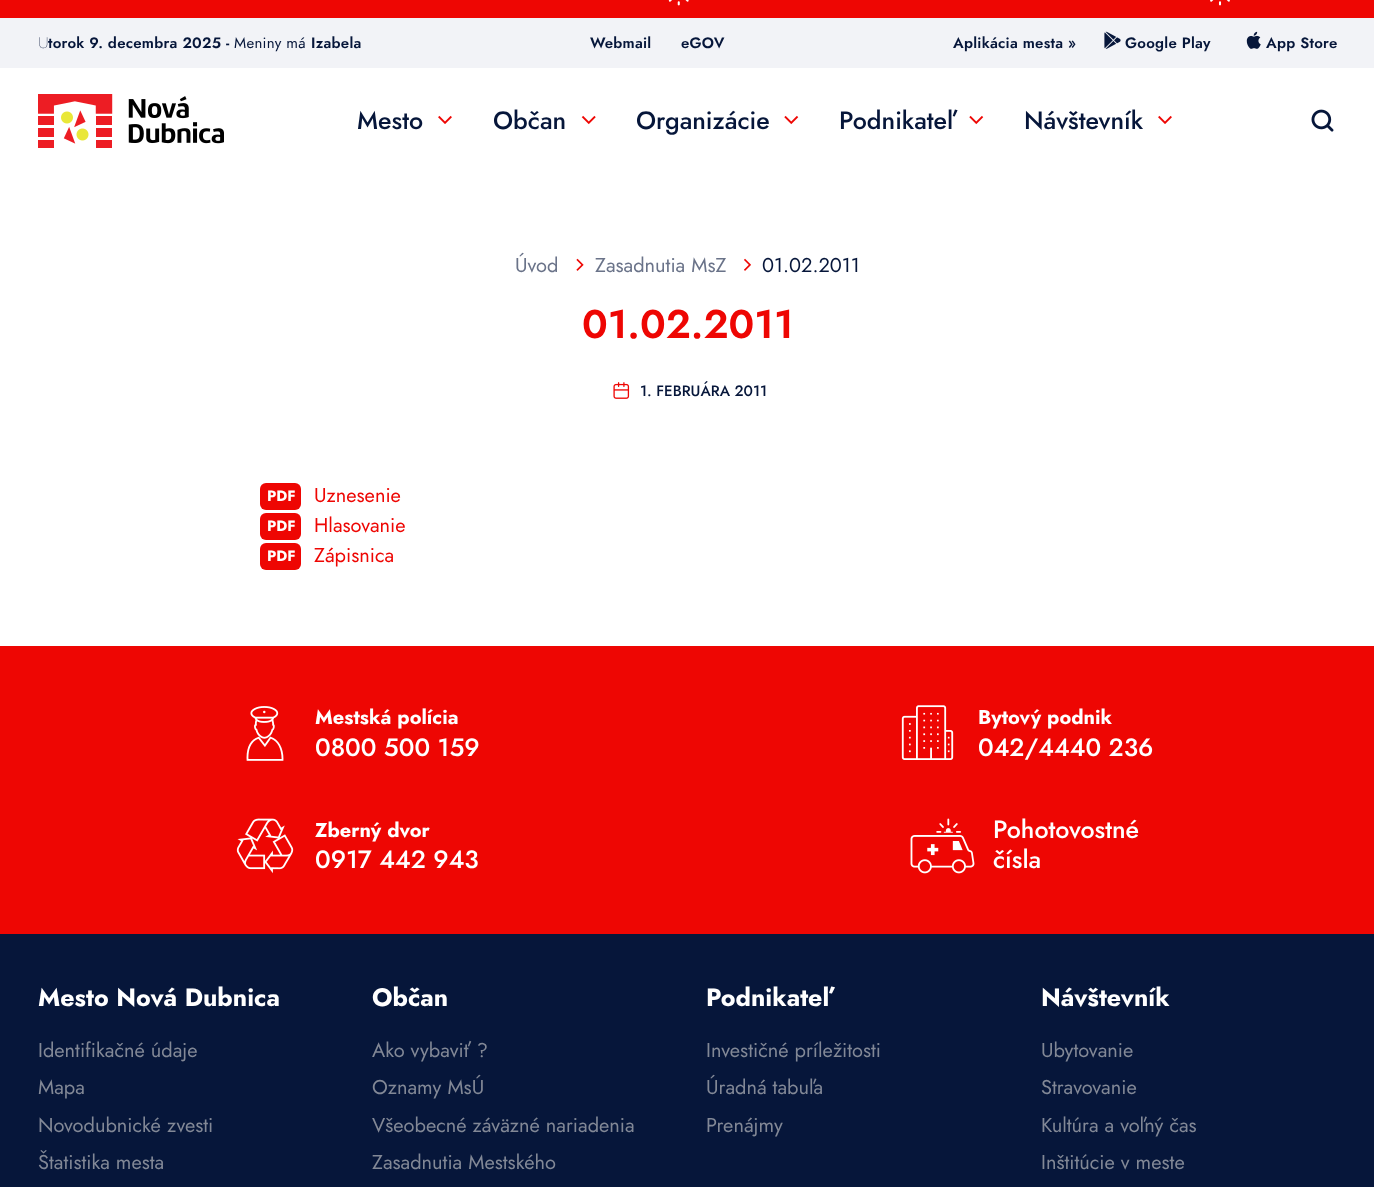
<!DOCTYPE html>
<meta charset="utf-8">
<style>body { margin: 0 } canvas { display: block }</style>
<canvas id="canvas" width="1374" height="1187"></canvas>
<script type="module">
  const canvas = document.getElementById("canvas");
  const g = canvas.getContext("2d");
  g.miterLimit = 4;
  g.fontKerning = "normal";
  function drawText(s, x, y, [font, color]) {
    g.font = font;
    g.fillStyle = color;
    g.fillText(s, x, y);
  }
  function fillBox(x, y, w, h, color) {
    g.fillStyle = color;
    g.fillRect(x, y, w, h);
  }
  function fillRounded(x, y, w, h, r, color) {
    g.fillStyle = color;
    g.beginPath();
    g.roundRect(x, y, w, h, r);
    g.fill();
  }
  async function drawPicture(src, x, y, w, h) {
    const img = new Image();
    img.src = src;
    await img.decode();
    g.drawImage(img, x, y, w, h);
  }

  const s1 = ["100 15px Noto Sans", "#06163A"];
  const s2 = ["600 15px Jost", "#06163A"];
  const s3 = ["15px Jost", "#06163A"];
  const s4 = ["500 25px Jost", "#06163A"];
  const s5 = ["20px Jost", "#6A7389"];
  const s6 = ["20px Jost", "#06163A"];
  const s7 = ["600 40px Jost", "#EE0603"];
  const s8 = ["500 15px Jost", "#06163A"];
  const s9 = ["bold 15px Jost", "#FFFFFF"];
  const s10 = ["20px Jost", "#EE0603"];
  const s11 = ["bold 20px Jost", "#FFFFFF"];
  const s12 = ["500 25px Jost", "#FFFFFF"];
  const s13 = ["bold 25px Jost", "#FFFFFF"];
  const s14 = ["20px Jost", "#828896"];

  fillBox(0, 0, 1374, 1187, "#FFFFFF");
  fillBox(0, 0, 1374, 18, "#EE0603");
  await drawPicture("pic1.png", 668, 0, 21, 6);
  await drawPicture("pic2.png", 1210, 0, 20, 6);
  fillBox(0, 18, 1374, 50, "#F2F3F7");
  g.letterSpacing = "0.25px";
  drawText("U", 38, 48, s1);
  drawText("torok 9. decembra 2025 -", 48, 48, s2);
  drawText("Meniny má", 234, 48, s3);
  drawText("Izabela", 311, 48, s2);
  drawText("Webmail", 590, 48, s2);
  drawText("eGOV", 681, 48, s2);
  drawText("Aplikácia mesta »", 953, 48, s2);
  await drawPicture("pic3.png", 1104, 31, 17, 18);
  drawText("Google Play", 1125, 48, s2);
  await drawPicture("pic4.png", 1246, 31, 15, 18);
  drawText("App Store", 1266, 48, s2);
  await drawPicture("pic5.png", 38, 94, 186, 54);
  g.letterSpacing = "0px";
  drawText("Mesto", 357, 129, s4);
  await drawPicture("pic6.png", 438, 115, 14, 9);
  drawText("Občan", 493, 129, s4);
  await drawPicture("pic7.png", 581, 115, 15, 10);
  drawText("Organizácie", 636, 129, s4);
  await drawPicture("pic8.png", 784, 115, 15, 10);
  drawText("Podnikateľ", 839, 129, s4);
  await drawPicture("pic8.png", 969, 115, 15, 10);
  drawText("Návštevník", 1024, 129, s4);
  await drawPicture("pic6.png", 1158, 115, 14, 9);
  await drawPicture("pic9.png", 1311, 109, 23, 23);
  drawText("Úvod", 515, 272, s5);
  await drawPicture("pic10.png", 576, 258, 8, 13);
  drawText("Zasadnutia MsZ", 595, 272, s5);
  await drawPicture("pic11.png", 744, 258, 7, 13);
  drawText("01.02.2011", 762, 272, s6);
  drawText("01.02.2011", 582, 338, s7);
  await drawPicture("pic12.png", 613, 382, 17, 17);
  drawText("1. FEBRUÁRA 2011", 640, 396, s8);
  fillRounded(260, 483, 41, 27, 6, "#EE0603");
  drawText("PDF", 267, 501, s9);
  drawText("Uznesenie", 314, 502, s10);
  fillRounded(260, 513, 41, 27, 6, "#EE0603");
  drawText("PDF", 267, 531, s9);
  drawText("Hlasovanie", 314, 532, s10);
  fillRounded(260, 543, 41, 27, 6, "#EE0603");
  drawText("PDF", 267, 561, s9);
  drawText("Zápisnica", 314, 562, s10);
  fillBox(0, 646, 1374, 288, "#EE0603");
  await drawPicture("pic13.png", 246, 706, 38, 55);
  drawText("Mestská polícia", 315, 724, s11);
  drawText("0800 500 159", 315, 756, s12);
  await drawPicture("pic14.png", 901, 705, 53, 55);
  drawText("Bytový podnik", 978, 724, s11);
  drawText("042/4440 236", 978, 756, s12);
  await drawPicture("pic15.png", 236, 818, 58, 56);
  drawText("Zberný dvor", 315, 837, s11);
  drawText("0917 442 943", 315, 868, s12);
  await drawPicture("pic16.png", 910, 818, 65, 56);
  drawText("Pohotovostné", 993, 838, s12);
  drawText("čísla", 993, 868, s12);
  fillBox(0, 934, 1374, 253, "#06163A");
  drawText("Mesto Nová Dubnica", 38, 1006, s13);
  drawText("Identifikačné údaje", 38, 1057, s14);
  drawText("Mapa", 38, 1094, s14);
  drawText("Novodubnické zvesti", 38, 1132, s14);
  drawText("Štatistika mesta", 38, 1169, s14);
  drawText("Občan", 372, 1006, s13);
  drawText("Ako vybaviť ?", 372, 1057, s14);
  drawText("Oznamy MsÚ", 372, 1094, s14);
  drawText("Všeobecné záväzné nariadenia", 372, 1132, s14);
  drawText("Zasadnutia Mestského", 372, 1169, s14);
  drawText("Podnikateľ", 706, 1006, s13);
  drawText("Investičné príležitosti", 706, 1057, s14);
  drawText("Úradná tabuľa", 706, 1094, s14);
  drawText("Prenájmy", 706, 1132, s14);
  drawText("Návštevník", 1041, 1006, s13);
  drawText("Ubytovanie", 1041, 1057, s14);
  drawText("Stravovanie", 1041, 1094, s14);
  drawText("Kultúra a voľný čas", 1041, 1132, s14);
  drawText("Inštitúcie v meste", 1041, 1169, s14);
</script>
